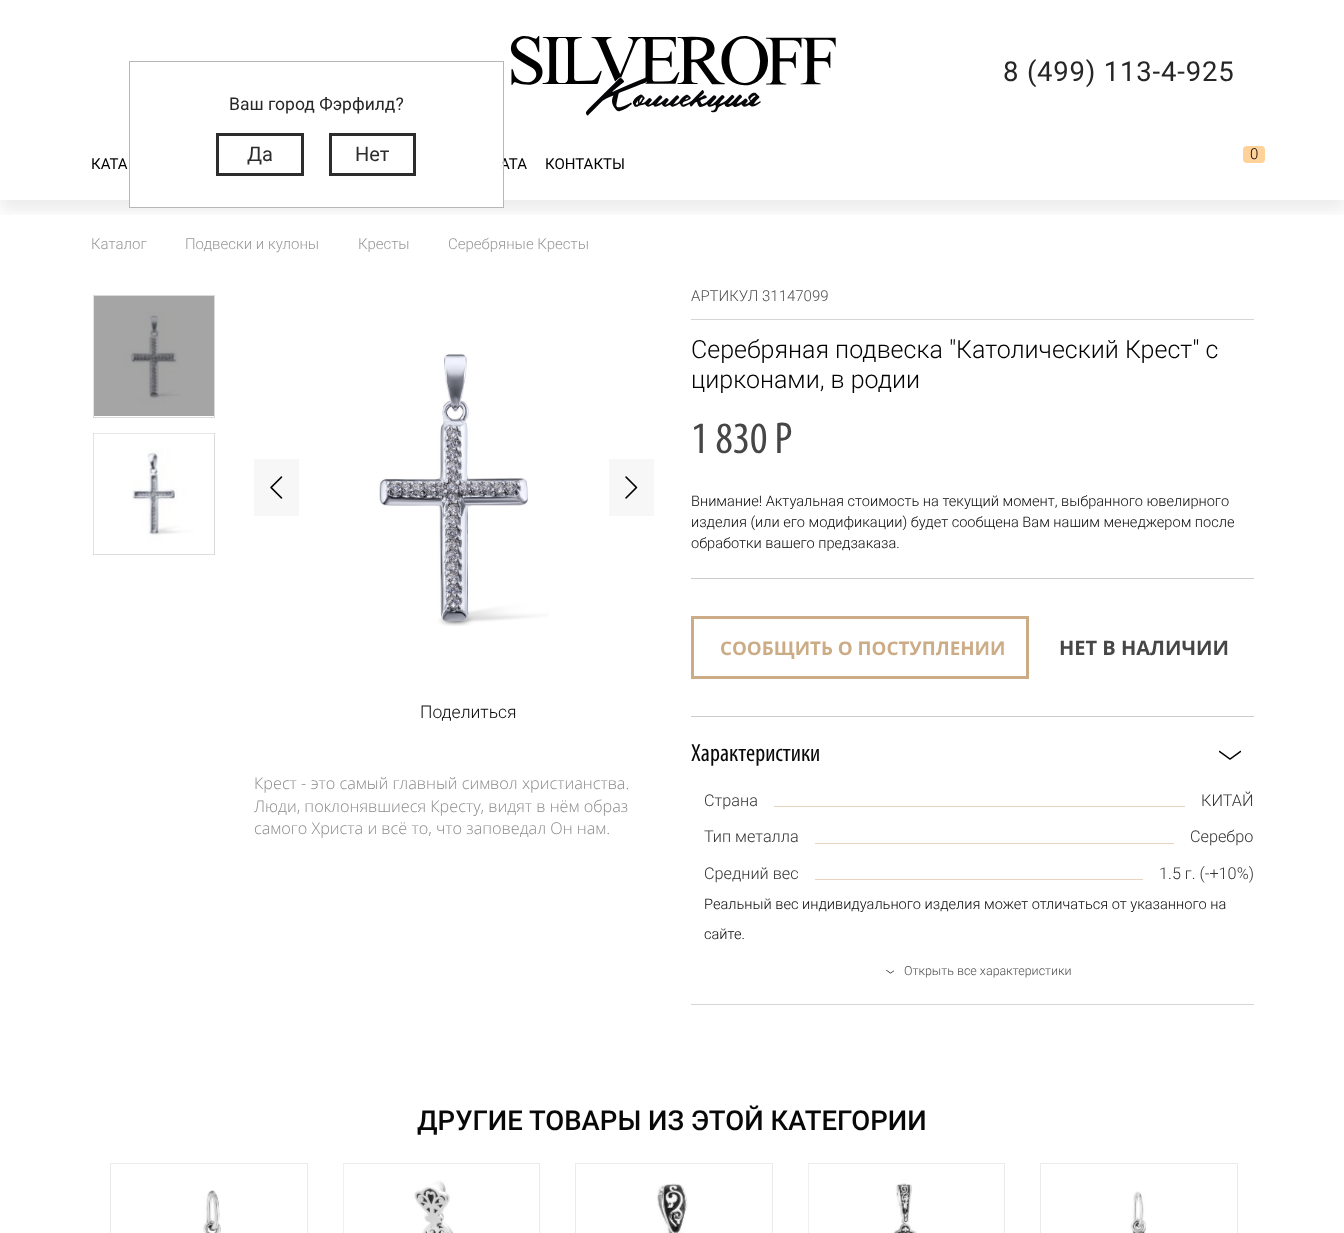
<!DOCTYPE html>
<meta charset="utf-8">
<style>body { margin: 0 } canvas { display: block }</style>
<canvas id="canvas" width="1344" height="1233"></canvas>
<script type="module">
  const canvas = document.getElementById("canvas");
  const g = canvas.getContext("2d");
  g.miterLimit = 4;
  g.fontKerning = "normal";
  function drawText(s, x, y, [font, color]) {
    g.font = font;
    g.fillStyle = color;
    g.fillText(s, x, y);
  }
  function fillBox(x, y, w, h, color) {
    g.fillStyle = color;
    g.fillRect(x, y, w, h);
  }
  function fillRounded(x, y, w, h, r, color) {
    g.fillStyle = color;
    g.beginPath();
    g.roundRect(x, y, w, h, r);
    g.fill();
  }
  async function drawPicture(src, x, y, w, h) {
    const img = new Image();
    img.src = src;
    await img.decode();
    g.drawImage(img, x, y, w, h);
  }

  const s1 = ["27.5px Roboto", "#262626"];
  const s2 = ["15px Roboto", "#000000"];
  const s3 = ["17.5px Roboto", "#262626"];
  const s4 = ["20px Roboto", "#2D2D2D"];
  const s5 = ["300 15px Roboto", "#000000"];
  const s6 = ["300 15px Roboto", "#999999"];
  const s7 = ["300 17.5px Roboto", "#080808"];
  const s8 = ["300 16.25px Open Sans", "#8B8B8B"];
  const s9 = ["300 15px Roboto", "#504F4F"];
  const s10 = ["300 25px Roboto", "#000000"];
  const s11 = ["45px Myriad", "#464646"];
  const s12 = ["300 14.6px Roboto", "#080808"];
  const s13 = ["bold 18.75px Open Sans", "#CCAC86"];
  const s14 = ["bold 20px Open Sans", "#464646"];
  const s15 = ["25px Myriad", "#080808"];
  const s16 = ["300 16.25px Roboto", "#333333"];
  const s17 = ["300 12.5px Roboto", "#504F4F"];
  const s18 = ["500 27.5px Roboto", "#080808"];

  fillBox(0, 0, 1344, 1233, "#FFFFFF");
  fillBox(94, 296, 120, 120, "#A5A5A5");
  await drawPicture("pic1.png", 510, 35, 326, 81);
  g.letterSpacing = "0.8px";
  drawText("8 (499) 113-4-925", 1003, 81, s1);
  g.save();
  g.beginPath();
  g.rect(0, 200, 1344, 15);
  g.clip();
  g.fillStyle = "rgba(0, 0, 0, 0.07)";
  g.filter = "blur(7px)";
  g.beginPath();
  g.rect(0, 139, 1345, 72);
  g.fill();
  g.filter = "none";
  g.restore();
  g.letterSpacing = "0px";
  drawText("АТА", 500, 169, s2);
  fillBox(130, 163, 373, 44, "rgba(255, 255, 255, 0.95)");
  g.strokeStyle = "#B7B7B7";
  g.strokeRect(129.5, 61.5, 374, 146);
  drawText("Ваш город Фэрфилд?", 229, 110, s3);
  g.strokeStyle = "#2D2D2D";
  g.lineWidth = 3;
  g.strokeRect(217.5, 134.5, 85, 40);
  drawText("Да", 247, 161, s4);
  g.strokeRect(330.5, 134.5, 84, 40);
  drawText("Нет", 355, 161, s4);
  fillRounded(1243, 146, 22, 17, 4, "#FFD299");
  drawText("0", 1250, 159, s5);
  drawText("КАТА", 91, 169, s2);
  drawText("КОНТАКТЫ", 545, 169, s2);
  drawText("Каталог", 91, 249, s6);
  drawText("Подвески и кулоны", 185, 249, s6);
  drawText("Кресты", 358, 249, s6);
  drawText("Серебряные Кресты", 448, 249, s6);
  g.strokeStyle = "#DADADA";
  g.lineWidth = 1;
  g.strokeRect(93.5, 295.5, 121, 122);
  await drawPicture("pic2.png", 93, 296, 87, 120);
  g.strokeRect(93.5, 433.5, 121, 121);
  await drawPicture("pic3.png", 93, 433, 121, 122);
  fillBox(254, 459, 45, 57, "#F7F7F7");
  await drawPicture("pic4.png", 270, 476, 13, 23);
  await drawPicture("pic5.png", 379, 354, 170, 272);
  fillBox(609, 459, 45, 57, "#F7F7F7");
  await drawPicture("pic6.png", 625, 476, 13, 23);
  drawText("Поделиться", 420, 718, s7);
  drawText("Крест - это самый главный символ христианства.", 254, 789, s8);
  drawText("Люди, поклонявшиеся Кресту, видят в нём образ", 254, 812, s8);
  drawText("самого Христа и всё то, что заповедал Он нам.", 254, 834, s8);
  fillBox(691, 319, 563, 1, "#D6D6D6");
  drawText("АРТИКУЛ 31147099", 691, 301, s9);
  drawText("Серебряная подвеска \"Католический Крест\" с", 691, 358, s10);
  drawText("цирконами, в родии", 691, 388, s10);
  drawText("1 830 Р", 691, 453, s11);
  drawText("Внимание! Актуальная стоимость на текущий момент, выбранного ювелирного", 691, 506, s12);
  drawText("изделия (или его модификации) будет сообщена Вам нашим менеджером после", 691, 527, s12);
  drawText("обработки вашего предзаказа.", 691, 548, s12);
  fillBox(691, 578, 563, 1, "#CCCCCC");
  g.strokeStyle = "#CCAC86";
  g.lineWidth = 3;
  g.strokeRect(692.5, 617.5, 335, 60);
  drawText("СООБЩИТЬ О ПОСТУПЛЕНИИ", 720, 655, s13);
  drawText("НЕТ В НАЛИЧИИ", 1059, 655, s14);
  fillBox(691, 716, 563, 1, "#CCCCCC");
  fillBox(691, 1004, 563, 1, "#D6D6D6");
  drawText("Характеристики", 691, 761, s15);
  await drawPicture("pic7.png", 1219, 750, 22, 10);
  drawText("Страна", 704, 806, s16);
  fillBox(774, 806, 411, 1, "#E8D2C0");
  drawText("КИТАЙ", 1201, 806, s16);
  drawText("Тип металла", 704, 842, s16);
  drawText("Серебро", 1190, 842, s16);
  fillBox(815, 843, 359, 1, "#E8D2C0");
  drawText("Средний вес", 704, 879, s16);
  fillBox(815, 879, 328, 1, "#E8D2C0");
  drawText("1.5 г. (-+10%)", 1159, 879, s16);
  drawText("Реальный вес индивидуального изделия может отличаться от указанного на", 704, 909, s12);
  drawText("сайте.", 704, 939, s12);
  await drawPicture("pic8.png", 886, 970, 8, 4);
  drawText("Открыть все характеристики", 904, 975, s17);
  drawText("ДРУГИЕ ТОВАРЫ ИЗ ЭТОЙ КАТЕГОРИИ", 417, 1130, s18);
  g.strokeStyle = "#EBEBEB";
  g.lineWidth = 1;
  g.strokeRect(110.5, 1163.5, 197, 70);
  await drawPicture("pic9.png", 202, 1190, 19, 43);
  g.strokeRect(343.5, 1163.5, 196, 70);
  await drawPicture("pic10.png", 343, 1164, 111, 69);
  g.strokeRect(575.5, 1163.5, 197, 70);
  await drawPicture("pic11.png", 657, 1183, 31, 50);
  g.strokeRect(808.5, 1163.5, 196, 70);
  await drawPicture("pic12.png", 808, 1164, 109, 69);
  g.strokeRect(1040.5, 1163.5, 197, 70);
  await drawPicture("pic13.png", 1130, 1191, 16, 42);
</script>
